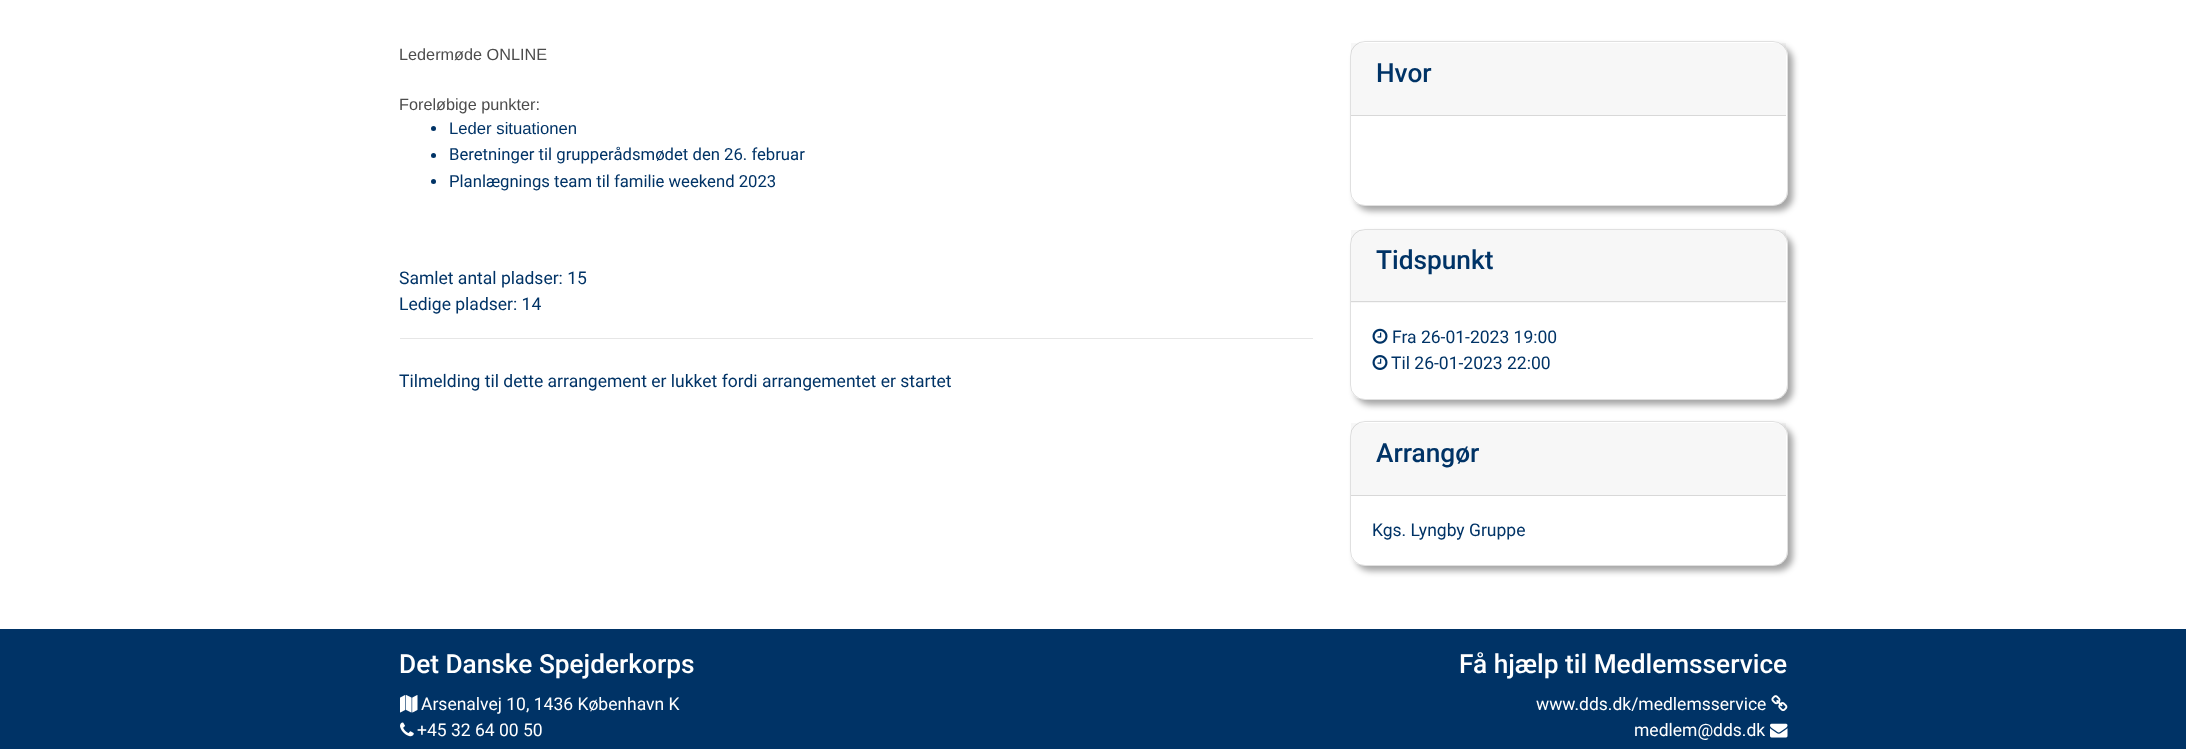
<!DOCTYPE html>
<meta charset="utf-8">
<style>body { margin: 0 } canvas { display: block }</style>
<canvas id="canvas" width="2186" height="749"></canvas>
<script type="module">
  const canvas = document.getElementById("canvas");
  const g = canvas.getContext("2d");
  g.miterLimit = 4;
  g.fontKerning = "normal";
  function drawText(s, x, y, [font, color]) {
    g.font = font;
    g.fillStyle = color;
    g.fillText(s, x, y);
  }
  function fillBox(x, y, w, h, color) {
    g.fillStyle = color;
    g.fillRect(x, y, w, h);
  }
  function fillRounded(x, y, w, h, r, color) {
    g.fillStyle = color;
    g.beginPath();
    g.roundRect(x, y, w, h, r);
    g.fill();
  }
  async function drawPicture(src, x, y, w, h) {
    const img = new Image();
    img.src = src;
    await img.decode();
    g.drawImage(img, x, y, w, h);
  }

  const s1 = ["16.25px Liberation Sans", "#4C4C4C"];
  const s2 = ["16.7px Liberation Sans", "#003366"];
  const s3 = ["16.7px Roboto", "#003366"];
  const s4 = ["17.5px Roboto", "#003366"];
  const s5 = ["500 26.25px Roboto", "#003366"];
  const s6 = ["500 26.25px Roboto", "#FFFFFF"];
  const s7 = ["17.5px Roboto", "#FFFFFF"];

  fillBox(0, 0, 2186, 749, "#FFFFFF");
  drawText("Ledermøde ONLINE", 399, 60, s1);
  drawText("Foreløbige punkter:", 399, 110, s1);
  g.fillStyle = "#003366";
  g.beginPath();
  g.arc(433.5, 128.5, 2.5, 0, Math.PI * 2);
  g.fill();
  drawText("Leder situationen", 449, 134, s2);
  g.beginPath();
  g.arc(433.5, 155.5, 2.5, 0, Math.PI * 2);
  g.fill();
  drawText("Beretninger til grupperådsmødet den 26. februar", 449, 160, s3);
  g.beginPath();
  g.arc(433.5, 181.5, 2.5, 0, Math.PI * 2);
  g.fill();
  drawText("Planlægnings team til familie weekend 2023", 449, 187, s3);
  drawText("Samlet antal pladser: 15", 399, 284, s4);
  drawText("Ledige pladser: 14", 399, 310, s4);
  fillBox(400, 338, 913, 1, "#E6E6E6");
  drawText("Tilmelding til dette arrangement er lukket fordi arrangementet er startet", 399, 387, s4);
  g.fillStyle = "rgba(0, 0, 0, 0.35)";
  g.filter = "blur(3px)";
  g.beginPath();
  g.roundRect(1355, 46, 438, 165, 15);
  g.fill();
  g.filter = "none";
  fillRounded(1350, 41, 438, 165, 15, "#FFFFFF");
  g.beginPath();
  g.roundRect(1350.5, 41.5, 437, 164, 14.5);
  g.strokeStyle = "rgba(0, 0, 0, 0.12)";
  g.stroke();
  fillBox(1351, 43, 435, 72, "rgba(0, 0, 0, 0.03)");
  fillBox(1351, 115, 435, 1, "#D8D8D8");
  drawText("Hvor", 1376, 82, s5);
  g.fillStyle = "rgba(0, 0, 0, 0.35)";
  g.filter = "blur(3px)";
  g.beginPath();
  g.roundRect(1355, 234, 438, 171, 15);
  g.fill();
  g.filter = "none";
  fillRounded(1350, 229, 438, 171, 15, "#FFFFFF");
  g.beginPath();
  g.roundRect(1350.5, 229.5, 437, 170, 14.5);
  g.stroke();
  fillBox(1351, 230, 435, 73, "rgba(0, 0, 0, 0.03)");
  fillBox(1351, 301, 435, 1, "#D8D8D8");
  drawText("Tidspunkt", 1376, 269, s5);
  await drawPicture("pic1.png", 1372, 328, 16, 16);
  drawText("Fra 26-01-2023 19:00", 1392, 343, s4);
  await drawPicture("pic2.png", 1372, 355, 16, 15);
  drawText("Til 26-01-2023 22:00", 1391, 369, s4);
  g.fillStyle = "rgba(0, 0, 0, 0.35)";
  g.filter = "blur(3px)";
  g.beginPath();
  g.roundRect(1355, 426, 438, 145, 15);
  g.fill();
  g.filter = "none";
  fillRounded(1350, 421, 438, 145, 15, "#FFFFFF");
  g.beginPath();
  g.roundRect(1350.5, 421.5, 437, 144, 14.5);
  g.stroke();
  fillBox(1351, 423, 435, 72, "rgba(0, 0, 0, 0.03)");
  fillBox(1351, 495, 435, 1, "#D8D8D8");
  drawText("Arrangør", 1376, 462, s5);
  drawText("Kgs. Lyngby Gruppe", 1372, 536, s4);
  fillBox(0, 629, 2186, 120, "#003366");
  drawText("Det Danske Spejderkorps", 399, 673, s6);
  await drawPicture("pic3.png", 400, 695, 18, 18);
  drawText("Arsenalvej 10, 1436 København K", 421, 710, s7);
  await drawPicture("pic4.png", 400, 722, 14, 15);
  drawText("+45 32 64 00 50", 417, 736, s7);
  drawText("Få hjælp til Medlemsservice", 1459, 673, s6);
  drawText("www.dds.dk/medlemsservice", 1536, 710, s7);
  await drawPicture("pic5.png", 1771, 695, 17, 17);
  drawText("medlem@dds.dk", 1634, 736, s7);
  await drawPicture("pic6.png", 1770, 723, 18, 15);
</script>
